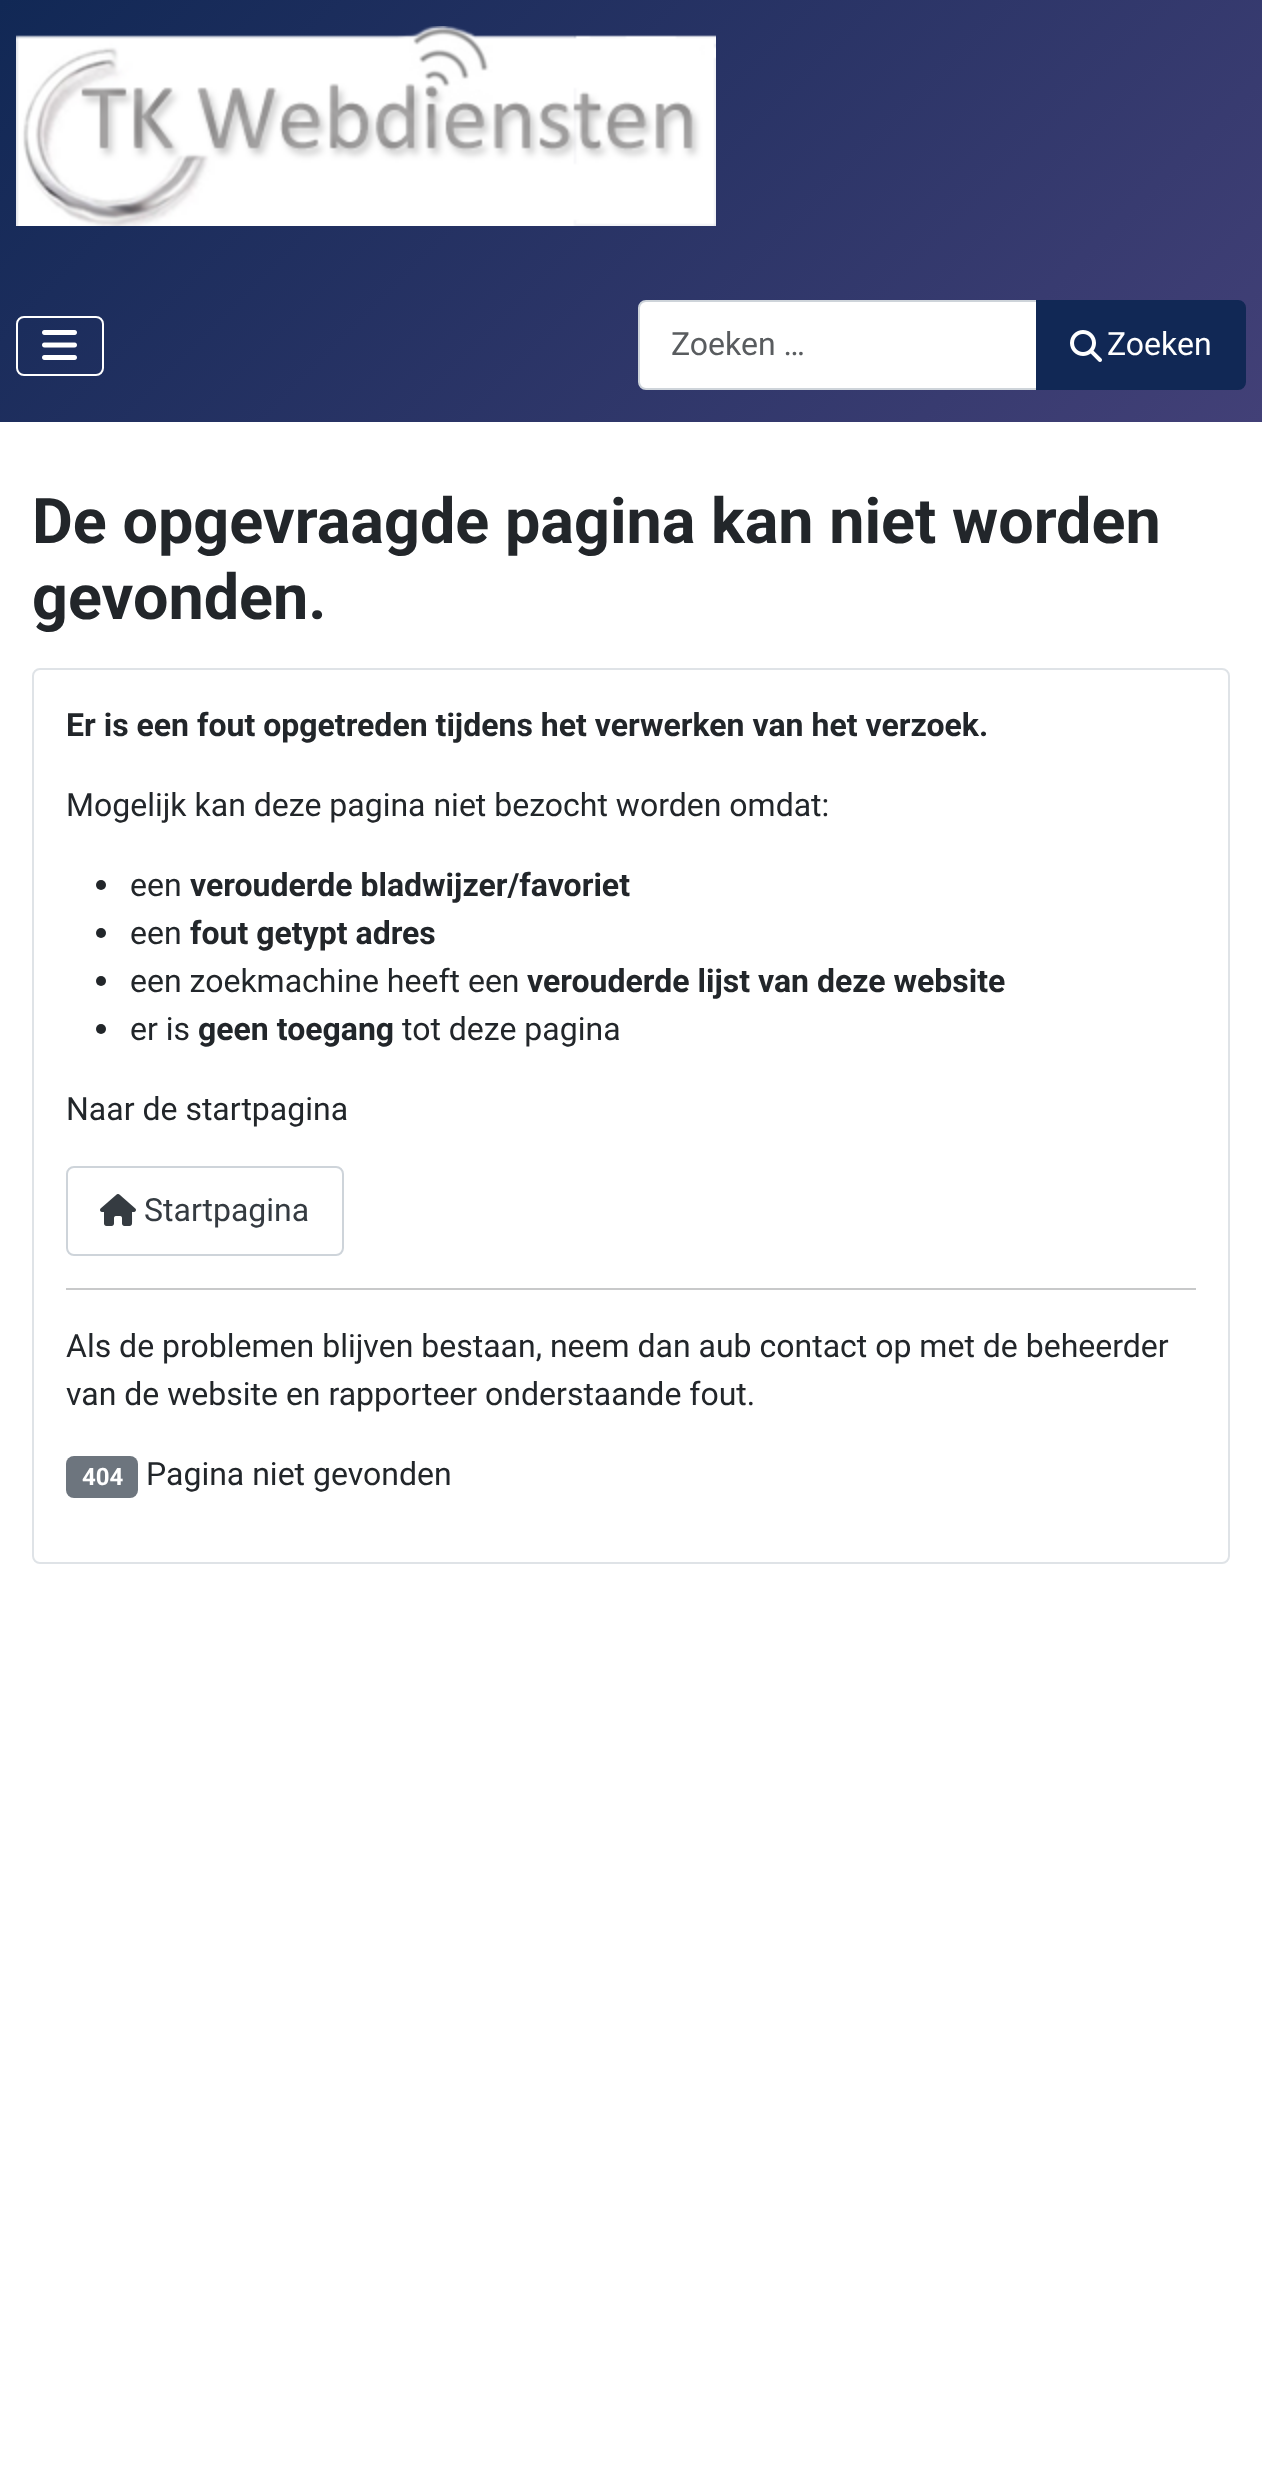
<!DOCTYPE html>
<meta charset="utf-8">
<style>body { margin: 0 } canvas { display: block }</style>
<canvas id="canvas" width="1262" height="2481"></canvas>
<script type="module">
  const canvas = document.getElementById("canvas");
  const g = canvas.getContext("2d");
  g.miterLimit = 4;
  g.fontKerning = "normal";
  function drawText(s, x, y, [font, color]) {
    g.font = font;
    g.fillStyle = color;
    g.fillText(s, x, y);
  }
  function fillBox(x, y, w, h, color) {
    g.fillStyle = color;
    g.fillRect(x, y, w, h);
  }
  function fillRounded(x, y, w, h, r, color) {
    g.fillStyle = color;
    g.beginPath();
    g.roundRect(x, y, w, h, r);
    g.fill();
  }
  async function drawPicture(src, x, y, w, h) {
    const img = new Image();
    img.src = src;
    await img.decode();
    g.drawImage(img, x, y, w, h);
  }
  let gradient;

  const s1 = ["32px Roboto", "#595C5F"];
  const s2 = ["32px Roboto", "#FFFFFF"];
  const s3 = ["bold 62.9px Roboto", "#22262A"];
  const s4 = ["bold 32px Roboto", "#22262A"];
  const s5 = ["32px Roboto", "#22262A"];
  const s6 = ["32px Roboto", "#353B41"];
  const s7 = ["bold 24px Roboto", "#FFFFFF"];

  fillBox(0, 0, 1262, 2481, "#FFFFFF");
  gradient = g.createLinearGradient(210, -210, 1052, 632);
  gradient.addColorStop(0, "#112855");
  gradient.addColorStop(1, "#424077");
  g.fillStyle = gradient;
  g.fillRect(0, 0, 1262, 422);
  await drawPicture("pic1.png", 16, 26, 700, 200);
  g.beginPath();
  g.roundRect(17, 317, 86, 58, 7);
  g.strokeStyle = "#FFFFFF";
  g.lineWidth = 2;
  g.stroke();
  await drawPicture("pic2.png", 42, 330, 35, 30);
  g.fillStyle = "#FFFFFF";
  g.beginPath();
  g.roundRect(639, 301, 398, 88, [7, 0, 0, 7]);
  g.fill();
  g.strokeStyle = "#CED4DA";
  g.stroke();
  drawText("Zoeken …", 671, 355, s1);
  g.fillStyle = "#112855";
  g.beginPath();
  g.roundRect(1037, 301, 208, 88, [0, 7, 7, 0]);
  g.fill();
  g.strokeStyle = "#112855";
  g.stroke();
  await drawPicture("pic3.png", 1070, 330, 32, 32);
  drawText("Zoeken", 1107, 355, s2);
  drawText("De opgevraagde pagina kan niet worden", 32, 543, s3);
  drawText("gevonden.", 32, 619, s3);
  g.beginPath();
  g.roundRect(33, 669, 1196, 894, 7);
  g.strokeStyle = "#DFE3E7";
  g.stroke();
  drawText("Er is een fout opgetreden tijdens het verwerken van het verzoek.", 66, 736, s4);
  drawText("Mogelijk kan deze pagina niet bezocht worden omdat:", 66, 816, s5);
  g.beginPath();
  g.arc(101, 885, 5, 0, Math.PI * 2);
  g.fill();
  drawText("een", 130, 896, s5);
  drawText("verouderde bladwijzer/favoriet", 190, 896, s4);
  g.beginPath();
  g.arc(101, 933, 5, 0, Math.PI * 2);
  g.fill();
  drawText("een", 130, 944, s5);
  drawText("fout getypt adres", 190, 944, s4);
  g.beginPath();
  g.arc(101, 981, 5, 0, Math.PI * 2);
  g.fill();
  drawText("een zoekmachine heeft een", 130, 992, s5);
  drawText("verouderde lijst van deze website", 527, 992, s4);
  g.beginPath();
  g.arc(101, 1029, 5, 0, Math.PI * 2);
  g.fill();
  drawText("er is", 130, 1040, s5);
  drawText("geen toegang", 198, 1040, s4);
  drawText("tot deze pagina", 402, 1040, s5);
  drawText("Naar de startpagina", 66, 1120, s5);
  g.beginPath();
  g.roundRect(67, 1167, 276, 88, 7);
  g.strokeStyle = "#CED4DA";
  g.stroke();
  await drawPicture("pic4.png", 100, 1194, 36, 32);
  drawText("Startpagina", 144, 1221, s6);
  fillBox(66, 1288, 1130, 2, "#C8C9CA");
  drawText("Als de problemen blijven bestaan, neem dan aub contact op met de beheerder", 66, 1357, s5);
  drawText("van de website en rapporteer onderstaande fout.", 66, 1405, s5);
  fillRounded(66, 1456, 72, 42, 8, "#6D757E");
  drawText("404", 82, 1485, s7);
  drawText("Pagina niet gevonden", 146, 1485, s5);
</script>
